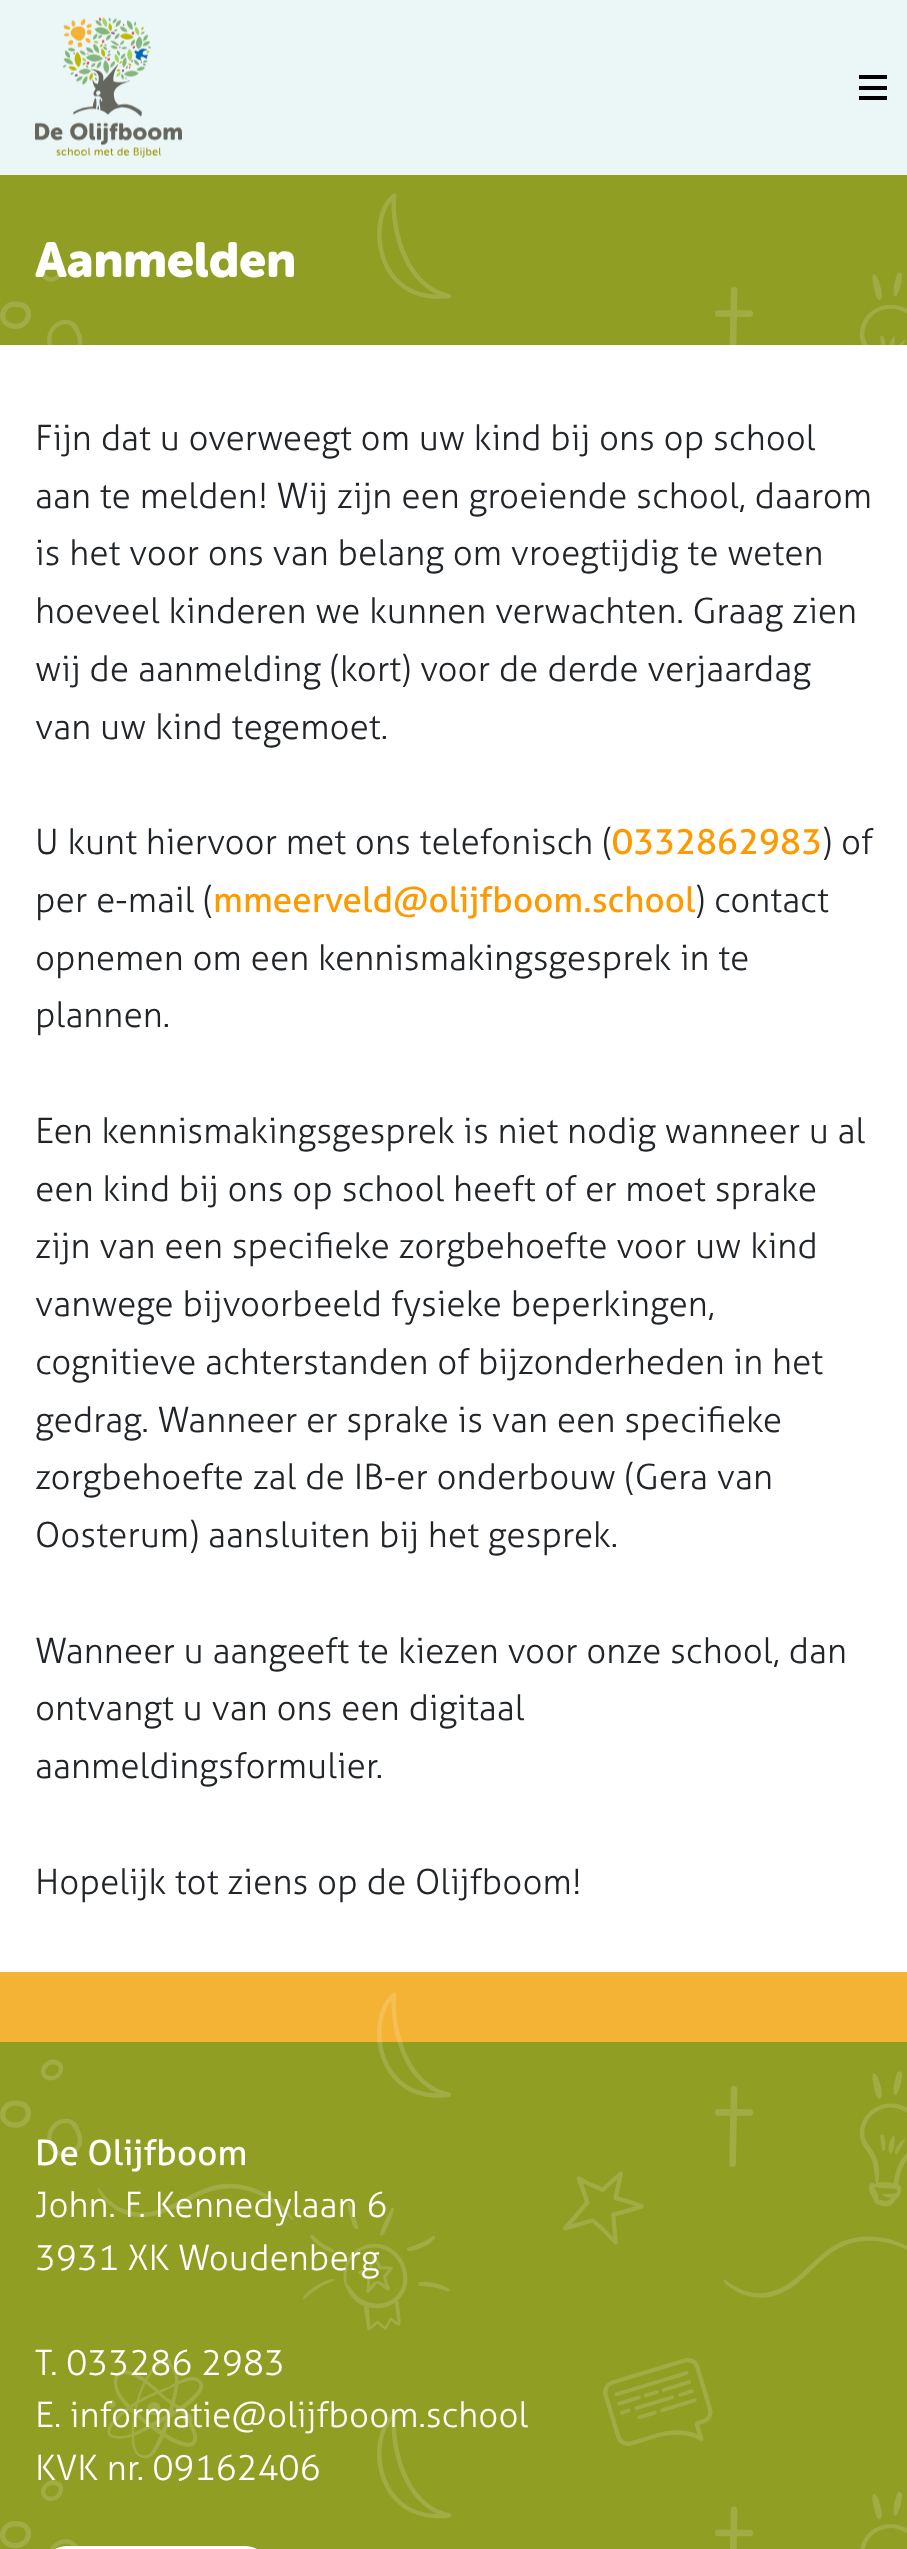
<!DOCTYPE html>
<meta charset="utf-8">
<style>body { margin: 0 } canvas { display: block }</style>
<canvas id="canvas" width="907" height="2549"></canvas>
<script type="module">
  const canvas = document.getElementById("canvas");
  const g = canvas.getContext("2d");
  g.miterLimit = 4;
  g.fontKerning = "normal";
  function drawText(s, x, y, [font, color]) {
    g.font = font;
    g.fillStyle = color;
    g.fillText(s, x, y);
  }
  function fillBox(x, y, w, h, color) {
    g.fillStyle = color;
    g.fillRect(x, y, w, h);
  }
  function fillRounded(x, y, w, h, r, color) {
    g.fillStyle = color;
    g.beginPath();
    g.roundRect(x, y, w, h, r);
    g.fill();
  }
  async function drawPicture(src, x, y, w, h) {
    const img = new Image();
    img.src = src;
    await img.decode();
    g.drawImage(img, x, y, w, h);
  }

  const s1 = ["bold 49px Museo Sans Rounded", "#FFFFFF"];
  const s2 = ["300 35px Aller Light", "#212529"];
  const s3 = ["35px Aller", "#FF9900"];
  const s4 = ["35px Aller", "#FFFFFF"];
  const s5 = ["300 35px Aller Light", "#FFFFFF"];

  fillBox(0, 0, 907, 2549, "#FFFFFF");
  fillBox(0, 0, 907, 175, "#EBF6F6");
  await drawPicture("pic1.png", 35, 17, 147, 141);
  fillBox(859, 86, 28, 4, "#000000");
  fillBox(859, 75, 28, 4, "#000000");
  fillBox(859, 96, 28, 4, "#000000");
  fillBox(0, 175, 907, 170, "#909E24");
  await drawPicture("pic2.png", 0, 193, 907, 152);
  drawText("Aanmelden", 35, 277, s1);
  drawText("Fijn dat u overweegt om uw kind bij ons op school", 35, 450, s2);
  drawText("aan te melden! Wij zijn een groeiende school, daarom", 35, 508, s2);
  drawText("is het voor ons van belang om vroegtijdig te weten", 35, 565, s2);
  drawText("hoeveel kinderen we kunnen verwachten. Graag zien", 35, 623, s2);
  drawText("wij de aanmelding (kort) voor de derde verjaardag", 35, 681, s2);
  drawText("van uw kind tegemoet.", 35, 739, s2);
  drawText("U kunt hiervoor met ons telefonisch (", 35, 854, s2);
  drawText("0332862983", 612, 854, s3);
  drawText(") of", 822, 854, s2);
  drawText("per e-mail (", 35, 912, s2);
  drawText("mmeerveld@olijfboom.school", 213, 912, s3);
  drawText(") contact", 695, 912, s2);
  drawText("opnemen om een kennismakingsgesprek in te", 35, 970, s2);
  drawText("plannen.", 35, 1027, s2);
  drawText("Een kennismakingsgesprek is niet nodig wanneer u al", 35, 1143, s2);
  drawText("een kind bij ons op school heeft of er moet sprake", 35, 1201, s2);
  drawText("zijn van een specifieke zorgbehoefte voor uw kind", 35, 1258, s2);
  drawText("vanwege bijvoorbeeld fysieke beperkingen,", 35, 1316, s2);
  drawText("cognitieve achterstanden of bijzonderheden in het", 35, 1374, s2);
  drawText("gedrag. Wanneer er sprake is van een specifieke", 35, 1432, s2);
  drawText("zorgbehoefte zal de IB-er onderbouw (Gera van", 35, 1489, s2);
  drawText("Oosterum) aansluiten bij het gesprek.", 35, 1547, s2);
  drawText("Wanneer u aangeeft te kiezen voor onze school, dan", 35, 1663, s2);
  drawText("ontvangt u van ons een digitaal", 35, 1720, s2);
  drawText("aanmeldingsformulier.", 35, 1778, s2);
  drawText("Hopelijk tot ziens op de Olijfboom!", 35, 1894, s2);
  fillBox(0, 2042, 907, 507, "#909E24");
  await drawPicture("pic3.png", 0, 2042, 907, 507);
  fillBox(0, 1972, 907, 70, "#F5B335");
  await drawPicture("pic4.png", 377, 1992, 25, 50);
  drawText("De Olijfboom", 35, 2165, s4);
  drawText("John. F. Kennedylaan 6", 35, 2217, s5);
  drawText("3931 XK Woudenberg", 35, 2270, s5);
  drawText("T. 033286 2983", 35, 2375, s5);
  drawText("E. informatie@olijfboom.school", 35, 2427, s5);
  drawText("KVK nr. 09162406", 35, 2480, s5);
  fillRounded(44, 2546, 224, 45, 41.5, "#FFFFFF");
</script>
